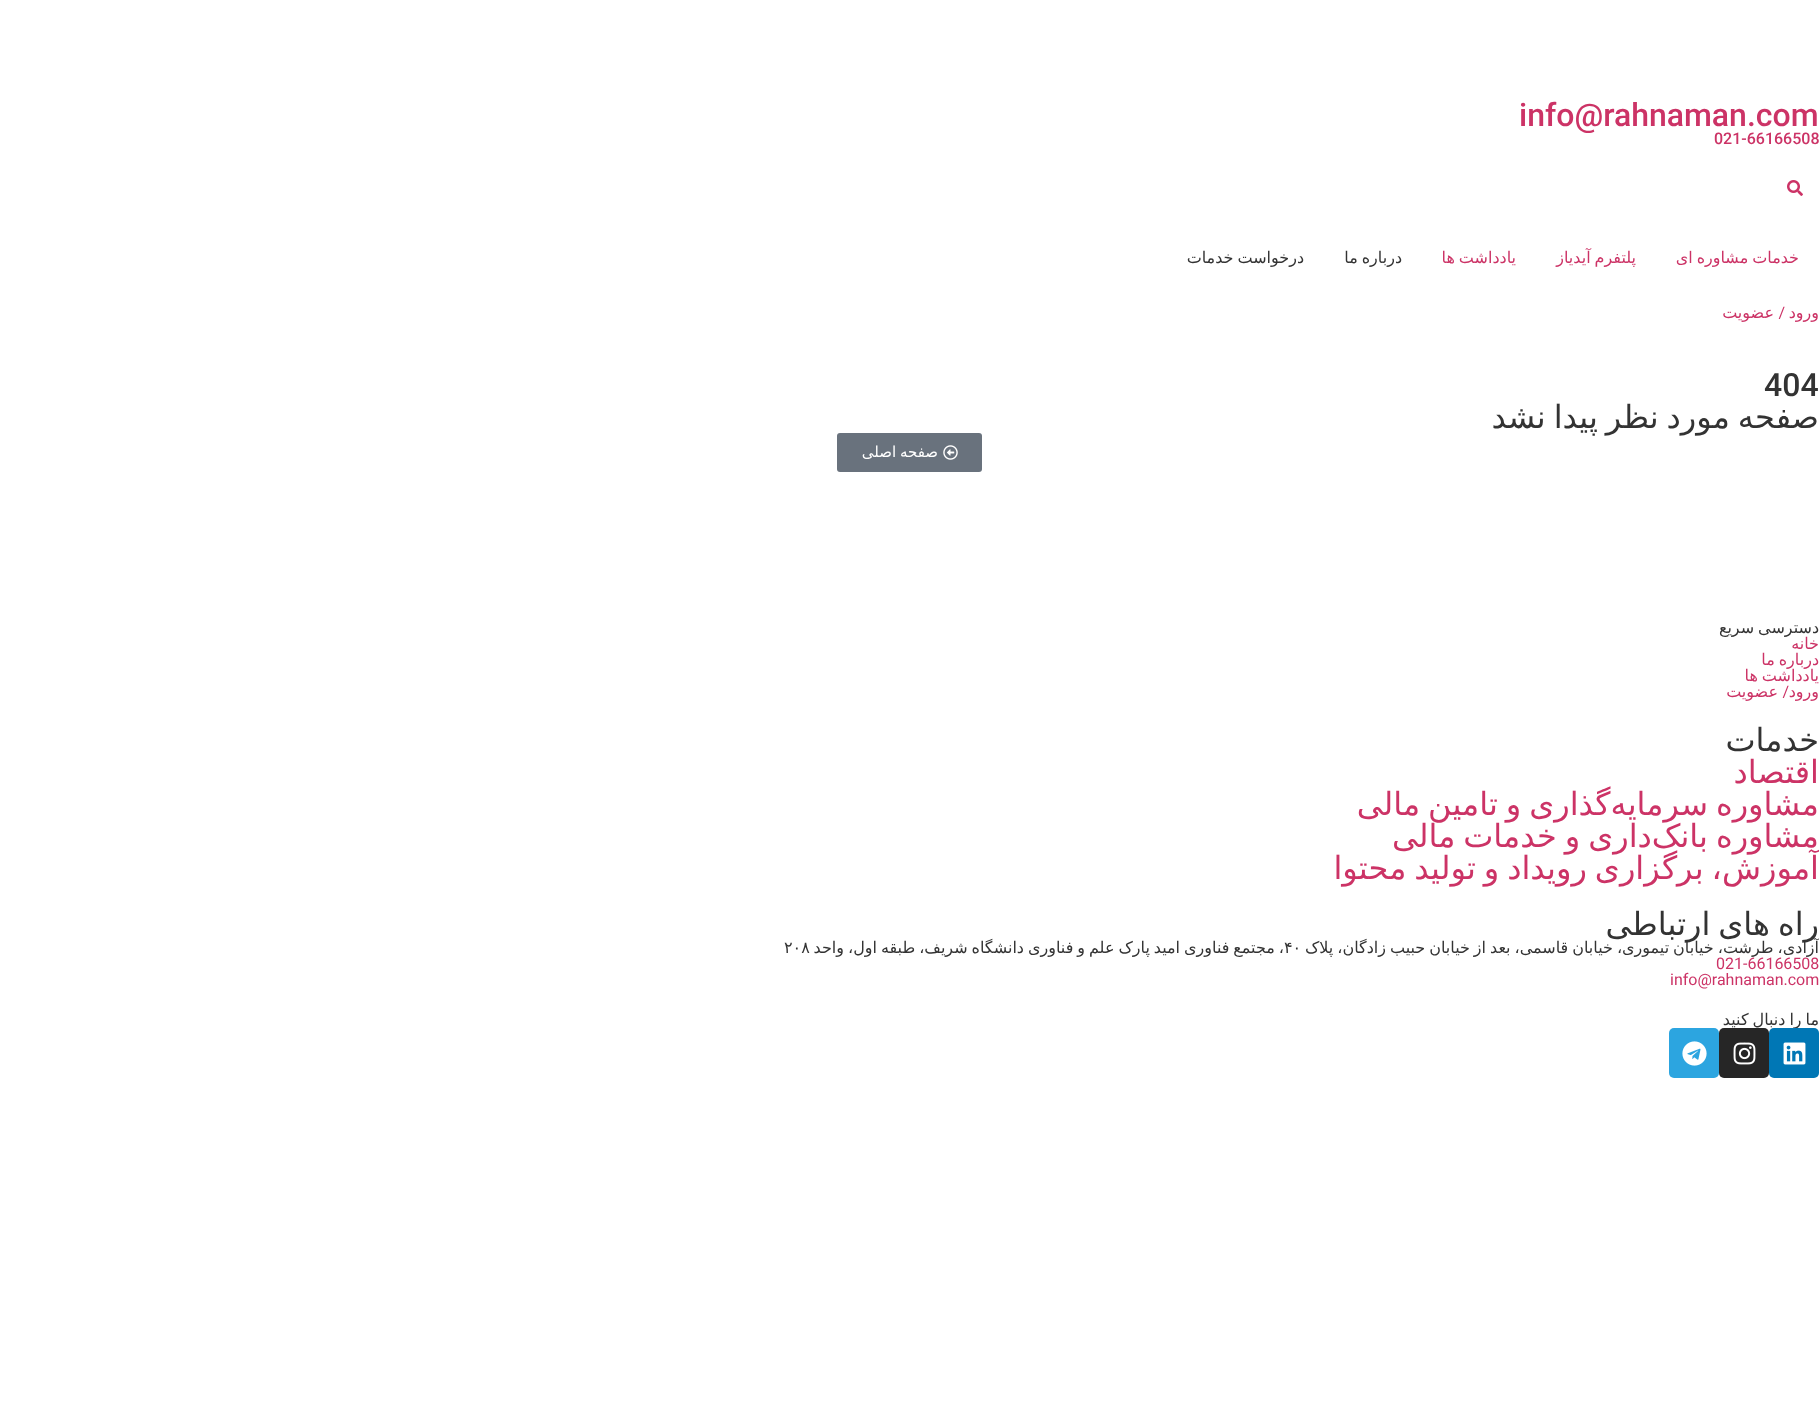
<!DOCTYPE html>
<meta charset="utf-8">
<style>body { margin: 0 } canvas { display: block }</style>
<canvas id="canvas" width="1819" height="1406"></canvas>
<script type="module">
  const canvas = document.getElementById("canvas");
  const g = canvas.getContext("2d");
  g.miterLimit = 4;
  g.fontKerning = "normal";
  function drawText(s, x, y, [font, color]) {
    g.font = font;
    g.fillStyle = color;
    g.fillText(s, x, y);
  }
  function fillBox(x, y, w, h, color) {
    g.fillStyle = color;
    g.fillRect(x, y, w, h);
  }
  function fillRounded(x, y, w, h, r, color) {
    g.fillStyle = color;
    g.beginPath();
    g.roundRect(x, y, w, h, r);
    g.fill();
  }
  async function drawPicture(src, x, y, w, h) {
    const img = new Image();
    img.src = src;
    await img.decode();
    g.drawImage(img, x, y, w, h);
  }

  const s1 = ["500 32px Roboto", "#CC3366"];
  const s2 = ["500 16px Roboto", "#CC3366"];
  const s3 = ["16px DejaVu Sans", "#CC3366"];
  const s4 = ["16px DejaVu Sans", "#333333"];
  const s5 = ["16px Roboto", "#CC3366"];
  const s6 = ["500 32px Roboto", "#333333"];
  const s7 = ["32px DejaVu Sans", "#333333"];
  const s8 = ["15px DejaVu Sans", "#FFFFFF"];
  const s9 = ["32px DejaVu Sans", "#CC3366"];

  fillBox(0, 0, 1819, 1406, "#FFFFFF");
  drawText("info@rahnaman.com", 1519, 126, s1);
  drawText("021-66166508", 1714, 144, s2);
  await drawPicture("pic1.png", 1787, 180, 16, 16);
  g.wordSpacing = "-1.1px";
  g.direction = "rtl";
  drawText("خدمات مشاوره ای", 1799, 263, s3);
  drawText("پلتفرم آیدیاز", 1636, 263, s3);
  drawText("یادداشت ها", 1516, 263, s3);
  drawText("درباره ما", 1402, 263, s4);
  drawText("درخواست خدمات", 1304, 263, s4);
  g.wordSpacing = "0px";
  drawText("ورود", 1819, 318, s3);
  drawText("/", 1785, 318, s5);
  drawText("عضویت", 1774, 318, s3);
  g.direction = "ltr";
  drawText("404", 1764, 396, s6);
  g.wordSpacing = "-2.25px";
  g.direction = "rtl";
  drawText("صفحه مورد نظر پیدا نشد", 1819, 428, s7);
  fillRounded(837, 433, 145, 39, 3, "#69727D");
  await drawPicture("pic2.png", 943, 445, 15, 15);
  g.wordSpacing = "-1px";
  drawText("صفحه اصلی", 938, 457, s8);
  g.wordSpacing = "-1.1px";
  drawText("دسترسی سریع", 1819, 633, s4);
  g.wordSpacing = "0px";
  drawText("خانه", 1819, 649, s3);
  g.wordSpacing = "-1.1px";
  drawText("درباره ما", 1819, 665, s3);
  drawText("یادداشت ها", 1819, 681, s3);
  g.wordSpacing = "0px";
  drawText("ورود", 1819, 697, s3);
  drawText("/", 1789, 697, s5);
  drawText("عضویت", 1778, 697, s3);
  drawText("خدمات", 1819, 751, s7);
  drawText("اقتصاد", 1819, 783, s9);
  g.wordSpacing = "-2.25px";
  drawText("مشاوره سرمایه‌گذاری و تامین مالی", 1819, 815, s9);
  drawText("مشاوره بانک‌داری و خدمات مالی", 1819, 847, s9);
  drawText("آموزش، برگزاری رویداد و تولید محتوا", 1819, 879, s9);
  drawText("راه های ارتباطی", 1819, 935, s7);
  g.wordSpacing = "-1.1px";
  drawText("آزادی، طرشت، خیابان تیموری، خیابان قاسمی، بعد از خیابان حبیب زادگان، پلاک", 1819, 953, s4);
  g.wordSpacing = "0px";
  g.direction = "ltr";
  drawText("۴۰", 1284, 953, s4);
  g.wordSpacing = "-1.1px";
  g.direction = "rtl";
  drawText("، مجتمع فناوری امید پارک علم و فناوری دانشگاه شریف، طبقه اول، واحد", 1284, 953, s4);
  g.wordSpacing = "0px";
  g.direction = "ltr";
  drawText("۲۰۸", 784, 953, s4);
  drawText("021-66166508", 1716, 969, s5);
  drawText("info@rahnaman.com", 1670, 985, s5);
  g.wordSpacing = "-1.1px";
  g.direction = "rtl";
  drawText("ما را دنبال کنید", 1819, 1025, s4);
  fillRounded(1769, 1028, 50, 50, 5, "#0077B5");
  await drawPicture("pic3.png", 1783, 1042, 23, 23);
  fillRounded(1719, 1028, 50, 50, 5, "#262626");
  await drawPicture("pic4.png", 1733, 1042, 23, 23);
  fillRounded(1669, 1028, 50, 50, 5, "#2CA5E0");
  await drawPicture("pic5.png", 1682, 1041, 25, 25);
</script>
